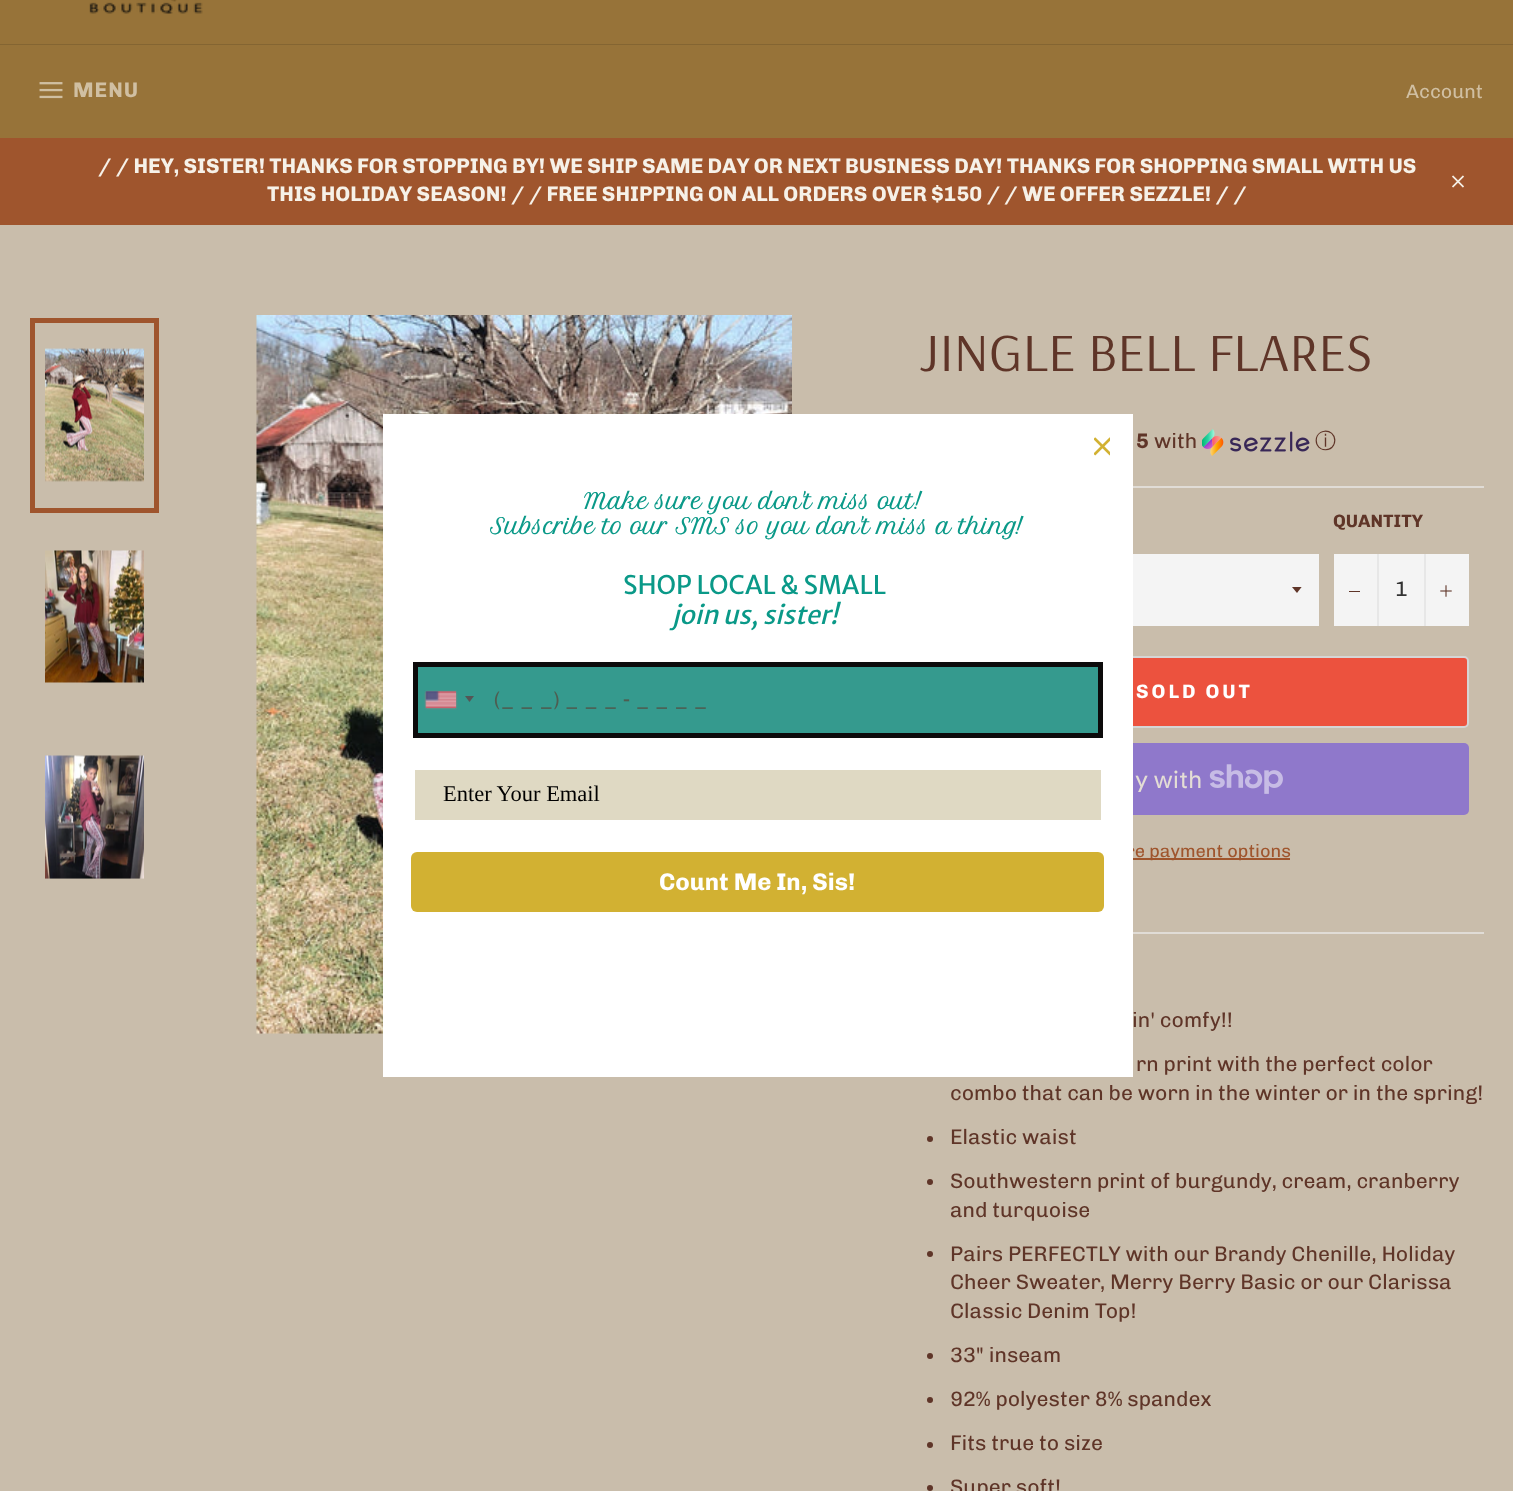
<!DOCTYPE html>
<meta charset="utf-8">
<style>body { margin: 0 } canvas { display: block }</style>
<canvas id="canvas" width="1513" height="1491"></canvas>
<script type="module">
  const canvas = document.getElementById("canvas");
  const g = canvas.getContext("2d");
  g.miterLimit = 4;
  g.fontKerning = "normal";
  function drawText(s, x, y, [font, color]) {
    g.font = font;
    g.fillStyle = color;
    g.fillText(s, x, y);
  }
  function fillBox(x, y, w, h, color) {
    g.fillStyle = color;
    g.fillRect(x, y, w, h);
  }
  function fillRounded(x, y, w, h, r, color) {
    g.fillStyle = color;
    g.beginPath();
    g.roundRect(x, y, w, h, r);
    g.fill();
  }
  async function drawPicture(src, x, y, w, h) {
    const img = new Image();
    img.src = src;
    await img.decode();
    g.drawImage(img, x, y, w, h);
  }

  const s1 = ["bold 21px Chivo", "#D0BFA2"];
  const s2 = ["19.5px Chivo", "#D0BFA2"];
  const s3 = ["bold 21px Chivo", "#F6F1E8"];
  const s4 = ["18px Chivo", "#9F552D"];
  const s5 = ["bold 21px Petit Formal Script", "#0A9988"];
  const s6 = ["25.5px Merriweather Sans", "#0A9988"];
  const s7 = ["italic 25.5px Merriweather Sans", "#0A9988"];
  const s8 = ["21px Chivo", "#4E5D51"];
  const s9 = ["22.5px Liberation Serif", "#000000"];
  const s10 = ["bold 24px Chivo", "#FFFFFF"];
  const s11 = ["54px Arsenal", "#5F3528"];
  const s12 = ["bold 21px Chivo", "#5F3528"];
  const s13 = ["21px Chivo", "#5F3528"];
  const s14 = ["500 21px WenQuanYi Zen Hei", "#5F3528"];
  const s15 = ["bold 18px Chivo", "#5F3528"];
  const s16 = ["21px Chivo", "#333333"];
  const s17 = ["bold 19.5px Chivo", "#FFFFFF"];
  const s18 = ["24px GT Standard", "#E4DED5"];

  fillBox(0, 0, 1513, 1491, "#977339");
  await drawPicture("pic1.png", 89, 0, 114, 14);
  fillBox(0, 44, 1513, 1, "#846532");
  await drawPicture("pic2.png", 39, 82, 24, 17);
  g.letterSpacing = "1px";
  drawText("MENU", 73, 97, s1);
  g.letterSpacing = "0px";
  drawText("Account", 1406, 98, s2);
  fillBox(0, 138, 1513, 87, "#9F552D");
  drawText("/ / HEY, SISTER! THANKS FOR STOPPING BY! WE SHIP SAME DAY OR NEXT BUSINESS DAY! THANKS FOR SHOPPING SMALL WITH US", 98, 173, s3);
  drawText("THIS HOLIDAY SEASON! / / FREE SHIPPING ON ALL ORDERS OVER $150 / / WE OFFER SEZZLE! / /", 267, 201, s3);
  await drawPicture("pic3.png", 1452, 175, 12, 13);
  fillBox(0, 225, 1513, 1266, "#C9BDAB");
  await drawPicture("pic10.png", 256, 315, 536, 719);
  g.fillStyle = "#EC523E";
  g.beginPath();
  g.roundRect(921, 657, 547, 70, 4);
  g.fill();
  g.strokeStyle = "#D5D5D5";
  g.lineWidth = 2;
  g.stroke();
  fillRounded(920, 743, 549, 72, 5, "#8F78CB");
  fillBox(1133, 858, 157, 2, "#9F552D");
  drawText("re payment options", 1126, 857, s4);
  fillBox(383, 414, 750, 663, "#FFFFFF");
  await drawPicture("pic4.png", 1094, 437, 16, 19);
  drawText("Make sure you don't miss out!", 584, 509, s5);
  drawText("Subscribe to our SMS so you don't miss a thing!", 490, 534, s5);
  drawText("SHOP LOCAL & SMALL", 623, 594, s6);
  drawText("join us, sister!", 672, 624, s7);
  g.fillStyle = "#359A8E";
  g.beginPath();
  g.rect(415.5, 664.5, 685, 71);
  g.fill();
  g.strokeStyle = "#0C0B0B";
  g.lineWidth = 5;
  g.stroke();
  g.fillStyle = "#888888";
  g.filter = "blur(1px)";
  g.beginPath();
  g.rect(426, 692, 30, 16);
  g.fill();
  g.filter = "none";
  await drawPicture("pic5.png", 425, 691, 31, 17);
  g.filter = "blur(1px)";
  g.beginPath();
  g.rect(426, 692, 30, 16);
  g.fill();
  g.filter = "none";
  await drawPicture("pic6.png", 425, 691, 31, 17);
  g.fillStyle = "#555555";
  g.beginPath();
  g.moveTo(465, 696);
  g.lineTo(474, 696);
  g.lineTo(469.5, 702);
  g.closePath();
  g.fill();
  drawText("(_ _ _) _ _ _ - _ _ _ _", 494, 706, s8);
  fillBox(415, 770, 686, 50, "#DFD9C3");
  drawText("Enter Your Email", 443, 801, s9);
  fillRounded(411, 852, 693, 60, 6, "#D2B132");
  drawText("Count Me In, Sis!", 659, 890, s10);
  await drawPicture("pic7.png", 45, 348, 99, 134);
  g.strokeStyle = "#9F552D";
  g.strokeRect(32.5, 320.5, 124, 190);
  await drawPicture("pic8.png", 45, 550, 99, 133);
  await drawPicture("pic9.png", 45, 755, 99, 124);
  drawText("JINGLE BELL FLARES", 920, 371, s11);
  drawText("5", 1136, 448, s12);
  drawText("with", 1154, 448, s13);
  await drawPicture("pic11.png", 1202, 429, 108, 27);
  drawText("ⓘ", 1315, 448, s14);
  fillBox(1133, 486, 351, 2, "#E0DCD6");
  fillBox(1133, 554, 186, 72, "#F4F4F4");
  g.save();
  g.beginPath();
  g.rect(1292, 587, 12, 7);
  g.clip();
  g.fillStyle = "#5F3528";
  g.beginPath();
  g.moveTo(1291.5, 586.5);
  g.lineTo(1297, 593);
  g.lineTo(1302, 586.5);
  g.closePath();
  g.fill();
  g.restore();
  drawText("QUANTITY", 1333, 527, s15);
  fillBox(1334, 554, 135, 72, "#F4F4F4");
  fillBox(1377, 554, 2, 72, "#E7E7E7");
  fillBox(1349, 591, 11, 1, "#5F3528");
  drawText("1", 1395, 596, s16);
  fillBox(1424, 554, 2, 72, "#E7E7E7");
  await drawPicture("pic12.png", 1440, 585, 12, 12);
  g.letterSpacing = "3px";
  drawText("SOLD OUT", 1136, 698, s17);
  g.letterSpacing = "0px";
  drawText("y with", 1135, 788, s18);
  await drawPicture("pic13.png", 1209, 764, 74, 30);
  fillBox(1133, 932, 351, 2, "#E0DCD6");
  drawText("in' comfy!!", 1132, 1027, s13);
  drawText("rn print with the perfect color", 1136, 1071, s13);
  drawText("combo that can be worn in the winter or in the spring!", 950, 1100, s13);
  g.beginPath();
  g.arc(930, 1139, 3, 0, Math.PI * 2);
  g.fill();
  drawText("Elastic waist", 950, 1144, s13);
  g.beginPath();
  g.arc(930, 1182, 3, 0, Math.PI * 2);
  g.fill();
  drawText("Southwestern print of burgundy, cream, cranberry", 950, 1188, s13);
  drawText("and turquoise", 950, 1217, s13);
  g.beginPath();
  g.arc(930, 1254, 3, 0, Math.PI * 2);
  g.fill();
  drawText("Pairs PERFECTLY with our Brandy Chenille, Holiday", 950, 1261, s13);
  drawText("Cheer Sweater, Merry Berry Basic or our Clarissa", 950, 1289, s13);
  drawText("Classic Denim Top!", 950, 1318, s13);
  g.beginPath();
  g.arc(930, 1356, 3, 0, Math.PI * 2);
  g.fill();
  drawText("33\" inseam", 950, 1362, s13);
  g.beginPath();
  g.arc(930, 1400, 3, 0, Math.PI * 2);
  g.fill();
  drawText("92% polyester 8% spandex", 950, 1406, s13);
  g.beginPath();
  g.arc(930, 1445, 3, 0, Math.PI * 2);
  g.fill();
  drawText("Fits true to size", 950, 1450, s13);
  g.beginPath();
  g.arc(930, 1488, 3, 0, Math.PI * 2);
  g.fill();
  drawText("Super soft!", 950, 1494, s13);
</script>
